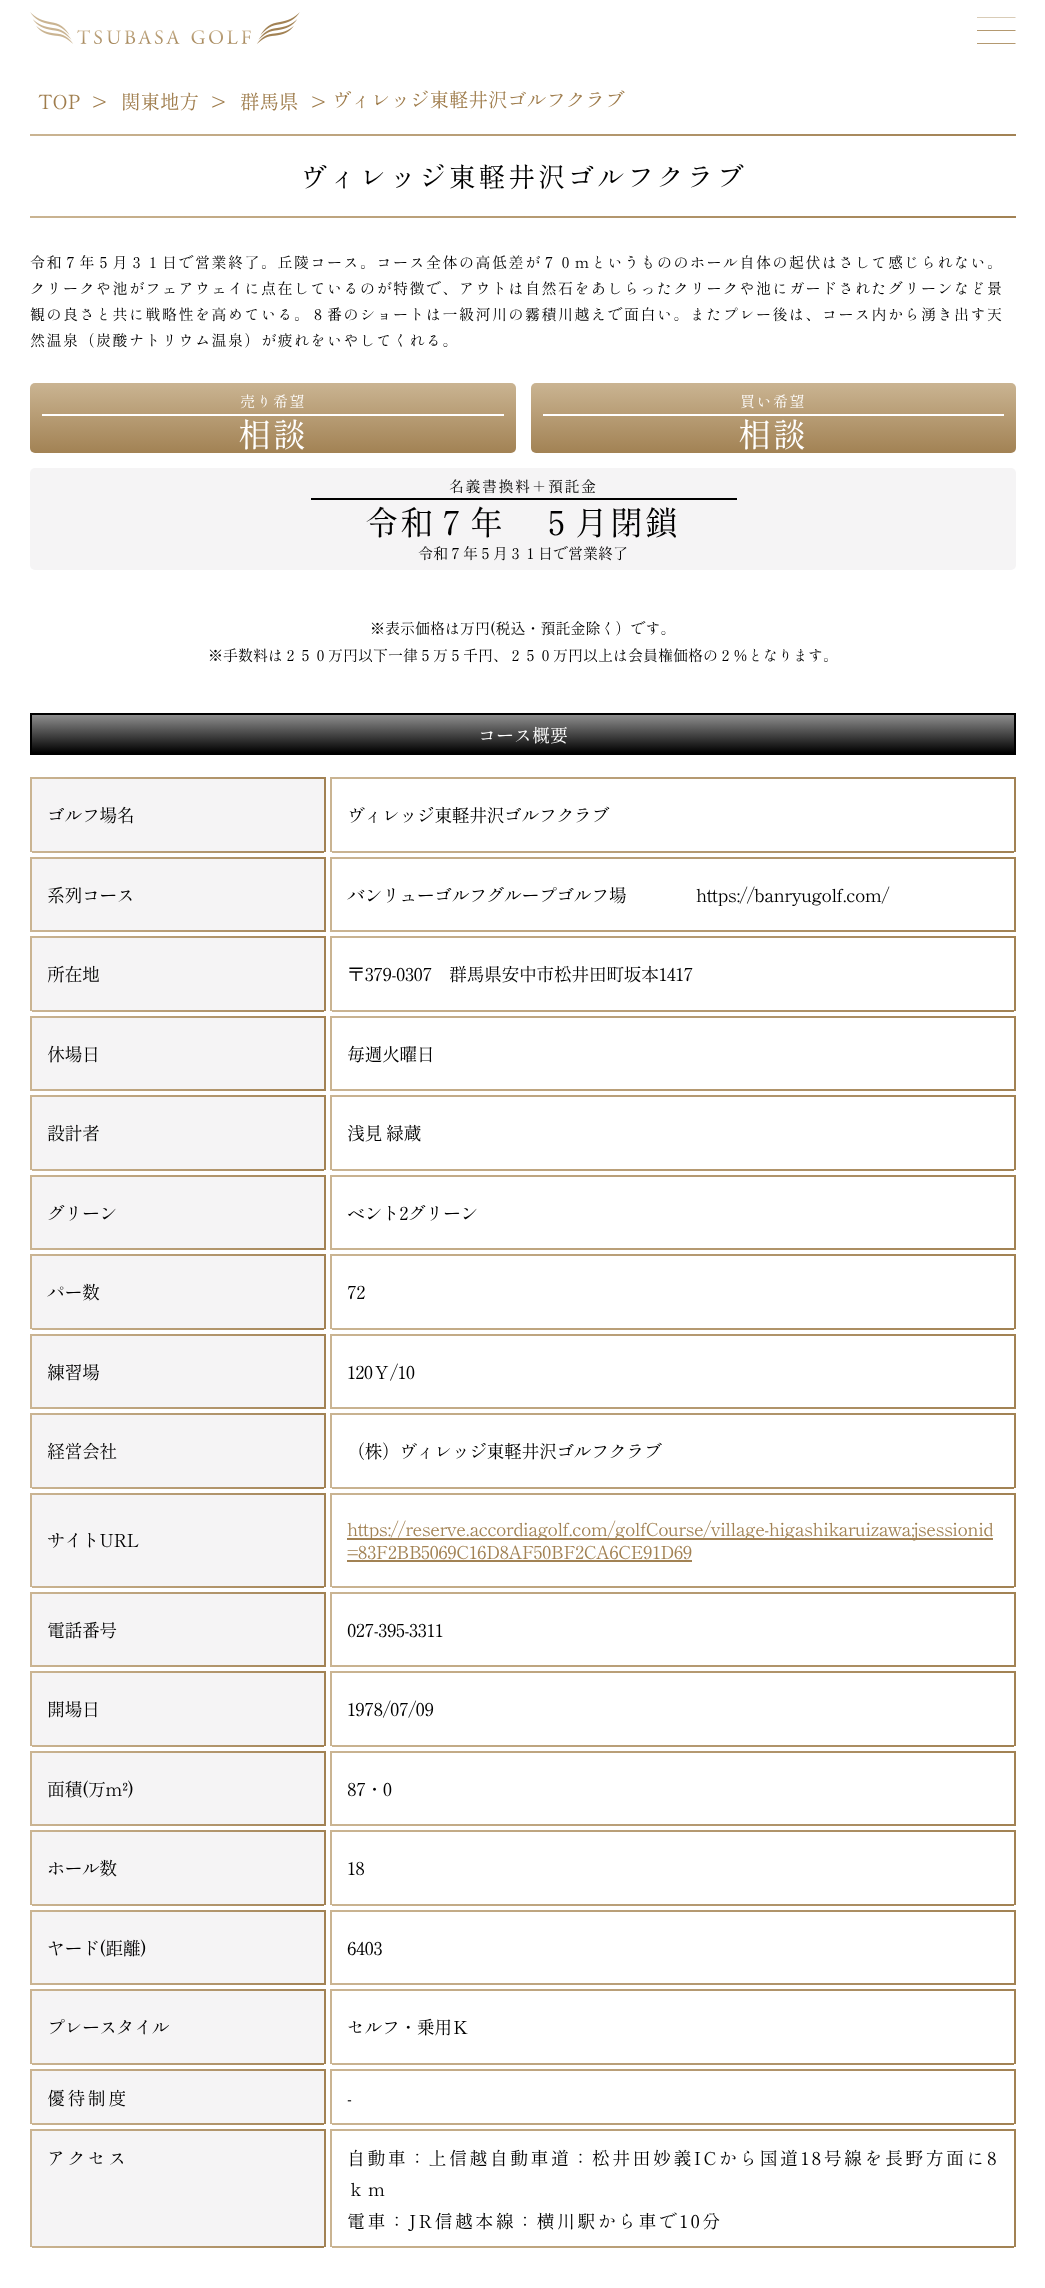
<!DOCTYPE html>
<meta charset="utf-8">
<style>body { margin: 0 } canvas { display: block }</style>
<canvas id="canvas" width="1045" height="2288"></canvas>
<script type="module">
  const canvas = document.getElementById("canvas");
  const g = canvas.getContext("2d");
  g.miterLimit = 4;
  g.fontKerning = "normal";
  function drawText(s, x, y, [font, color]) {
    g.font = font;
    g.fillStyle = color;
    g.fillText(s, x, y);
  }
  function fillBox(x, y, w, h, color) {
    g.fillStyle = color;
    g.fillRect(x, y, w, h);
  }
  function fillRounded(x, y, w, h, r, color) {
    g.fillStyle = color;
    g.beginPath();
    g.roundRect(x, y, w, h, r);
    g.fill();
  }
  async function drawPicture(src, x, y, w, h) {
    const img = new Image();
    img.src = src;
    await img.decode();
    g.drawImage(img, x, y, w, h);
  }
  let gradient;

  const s1 = ["27px Shippori Mincho", "#000000"];
  const s2 = ["15px Shippori Mincho", "#000000"];
  const s3 = ["15px Shippori Mincho", "#FFFFFF"];
  const s4 = ["33px Shippori Mincho", "#FFFFFF"];
  const s5 = ["33px Shippori Mincho", "#000000"];
  const s6 = ["18px Shippori Mincho", "#FFFFFF"];
  const s7 = ["18px Shippori Mincho", "#000000"];
  const s8 = ["18px Shippori Mincho", "#A28254"];

  fillBox(0, 0, 1045, 2288, "#FFFFFF");
  await drawPicture("pic1.png", 30, 12, 270, 32);
  g.save();
  g.beginPath();
  g.rect(977, 17, 39, 27);
  g.clip();
  g.beginPath();
  g.moveTo(976.5, 17);
  g.lineTo(1015.5, 17);
  g.moveTo(976.5, 30.5);
  g.lineTo(1015.5, 30.5);
  g.moveTo(976.5, 43.5);
  g.lineTo(1015.5, 43.5);
  g.strokeStyle = "#B49970";
  g.lineWidth = 1.2;
  g.stroke();
  g.restore();
  g.font = "19.5px Shippori Mincho";
  gradient = g.createLinearGradient(59, 111, 59, 91);
  gradient.addColorStop(0, "#9D7947");
  gradient.addColorStop(1, "#A28254");
  g.fillStyle = gradient;
  g.fillText("TOP", 38, 109);
  gradient = g.createLinearGradient(69, 111, 69, 88);
  gradient.addColorStop(0, "#9D7947");
  gradient.addColorStop(1, "#A28254");
  g.fillStyle = gradient;
  g.fillText(">", 92, 109);
  gradient = g.createLinearGradient(160, 111, 160, 91);
  gradient.addColorStop(0, "#9D7947");
  gradient.addColorStop(1, "#A28254");
  g.fillStyle = gradient;
  g.fillText("関東地方", 121, 109);
  gradient = g.createLinearGradient(170, 111, 170, 88);
  gradient.addColorStop(0, "#9D7947");
  gradient.addColorStop(1, "#A28254");
  g.fillStyle = gradient;
  g.fillText(">", 211, 109);
  gradient = g.createLinearGradient(269, 111, 269, 91);
  gradient.addColorStop(0, "#9D7947");
  gradient.addColorStop(1, "#A28254");
  g.fillStyle = gradient;
  g.fillText("群馬県", 240, 109);
  gradient = g.createLinearGradient(279, 111, 279, 88);
  gradient.addColorStop(0, "#9D7947");
  gradient.addColorStop(1, "#A28254");
  g.fillStyle = gradient;
  g.fillText(">", 311, 109);
  gradient = g.createLinearGradient(478, 109, 478, 89);
  gradient.addColorStop(0, "#9D7947");
  gradient.addColorStop(1, "#A28254");
  g.fillStyle = gradient;
  g.fillText("ヴィレッジ東軽井沢ゴルフクラブ", 332, 107);
  gradient = g.createLinearGradient(1016, 134, 30, 134);
  gradient.addColorStop(0, "#A28254");
  gradient.addColorStop(1, "#CAB492");
  g.fillStyle = gradient;
  g.fillRect(30, 134, 986, 2);
  g.letterSpacing = "2.75px";
  drawText("ヴィレッジ東軽井沢ゴルフクラブ", 300, 187, s1);
  gradient = g.createLinearGradient(1016, 217, 30, 217);
  gradient.addColorStop(0, "#A28254");
  gradient.addColorStop(1, "#CAB492");
  g.fillStyle = gradient;
  g.fillRect(30, 216, 986, 2);
  g.letterSpacing = "1.5px";
  drawText("令和７年５月３１日で営業終了。丘陵コース。コース全体の高低差が７０ｍというもののホール自体の起伏はさして感じられない。", 30, 268, s2);
  drawText("クリークや池がフェアウェイに点在しているのが特徴で、アウトは自然石をあしらったクリークや池にガードされたグリーンなど景", 30, 294, s2);
  drawText("観の良さと共に戦略性を高めている。８番のショートは一級河川の霧積川越えで面白い。またプレー後は、コース内から湧き出す天", 30, 320, s2);
  drawText("然温泉（炭酸ナトリウム温泉）が疲れをいやしてくれる。", 30, 346, s2);
  gradient = g.createLinearGradient(273, 453, 273, 383);
  gradient.addColorStop(0, "#A28254");
  gradient.addColorStop(1, "#CAB492");
  g.fillStyle = gradient;
  g.beginPath();
  g.roundRect(30, 383, 486, 70, 5);
  g.fill();
  fillBox(42, 414, 462, 2, "#FFFFFF");
  drawText("売り希望", 240, 407, s3);
  g.letterSpacing = "2px";
  drawText("相談", 238, 447, s4);
  gradient = g.createLinearGradient(773, 453, 773, 383);
  gradient.addColorStop(0, "#A28254");
  gradient.addColorStop(1, "#CAB492");
  g.fillStyle = gradient;
  g.beginPath();
  g.roundRect(531, 383, 485, 70, 5);
  g.fill();
  fillBox(543, 414, 461, 2, "#FFFFFF");
  g.letterSpacing = "1.5px";
  drawText("買い希望", 740, 407, s3);
  g.letterSpacing = "2px";
  drawText("相談", 738, 447, s4);
  fillRounded(30, 468, 986, 102, 5, "#F5F4F5");
  fillBox(311, 498, 426, 2, "#000000");
  g.letterSpacing = "1.5px";
  drawText("名義書換料＋預託金", 449, 492, s2);
  g.letterSpacing = "2px";
  drawText("令和７年　５月閉鎖", 365, 535, s5);
  g.letterSpacing = "0px";
  drawText("令和７年５月３１日で営業終了", 418, 559, s2);
  drawText("※表示価格は万円(税込・預託金除く）です。", 370, 634, s2);
  drawText("※手数料は２５０万円以下一律５万５千円、２５０万円以上は会員権価格の２％となります。", 208, 661, s2);
  gradient = g.createLinearGradient(523, 753, 523, 714);
  gradient.addColorStop(0, "#000000");
  gradient.addColorStop(1, "#919191");
  g.fillStyle = gradient;
  g.fillRect(32, 715, 982, 38);
  g.strokeStyle = "#000000";
  g.lineWidth = 2;
  g.strokeRect(31, 714, 984, 40);
  drawText("コース概要", 478, 742, s6);
  fillBox(32, 779, 292, 72, "#F5F4F5");
  fillBox(324, 777, 2, 75, "#A28254");
  fillBox(30, 777, 2, 75, "#CAB492");
  gradient = g.createLinearGradient(324, 778, 32, 778);
  gradient.addColorStop(0, "#A28254");
  gradient.addColorStop(1, "#CAB492");
  g.fillStyle = gradient;
  g.fillRect(32, 777, 292, 2);
  g.letterSpacing = "-0.55px";
  drawText("ゴルフ場名", 47, 822, s7);
  gradient = g.createLinearGradient(324, 851, 32, 851);
  gradient.addColorStop(0, "#A28254");
  gradient.addColorStop(1, "#CAB492");
  g.fillStyle = gradient;
  g.fillRect(32, 851, 292, 2);
  fillBox(1014, 777, 2, 75, "#A28254");
  fillBox(330, 777, 2, 75, "#CAB492");
  gradient = g.createLinearGradient(1014, 778, 332, 778);
  gradient.addColorStop(0, "#A28254");
  gradient.addColorStop(1, "#CAB492");
  g.fillStyle = gradient;
  g.fillRect(332, 777, 682, 2);
  drawText("ヴィレッジ東軽井沢ゴルフクラブ", 347, 822, s7);
  gradient = g.createLinearGradient(1014, 851, 332, 851);
  gradient.addColorStop(0, "#A28254");
  gradient.addColorStop(1, "#CAB492");
  g.fillStyle = gradient;
  g.fillRect(332, 851, 682, 2);
  fillBox(32, 859, 292, 71, "#F5F4F5");
  fillBox(324, 857, 2, 75, "#A28254");
  fillBox(30, 857, 2, 75, "#CAB492");
  gradient = g.createLinearGradient(324, 857, 32, 857);
  gradient.addColorStop(0, "#A28254");
  gradient.addColorStop(1, "#CAB492");
  g.fillStyle = gradient;
  g.fillRect(32, 857, 292, 2);
  drawText("系列コース", 47, 902, s7);
  gradient = g.createLinearGradient(324, 931, 32, 931);
  gradient.addColorStop(0, "#A28254");
  gradient.addColorStop(1, "#CAB492");
  g.fillStyle = gradient;
  g.fillRect(32, 930, 292, 2);
  fillBox(1014, 857, 2, 75, "#A28254");
  fillBox(330, 857, 2, 75, "#CAB492");
  gradient = g.createLinearGradient(1014, 857, 332, 857);
  gradient.addColorStop(0, "#A28254");
  gradient.addColorStop(1, "#CAB492");
  g.fillStyle = gradient;
  g.fillRect(332, 857, 682, 2);
  drawText("バンリューゴルフグループゴルフ場　　　　https://banryugolf.com/", 347, 902, s7);
  gradient = g.createLinearGradient(1014, 931, 332, 931);
  gradient.addColorStop(0, "#A28254");
  gradient.addColorStop(1, "#CAB492");
  g.fillStyle = gradient;
  g.fillRect(332, 930, 682, 2);
  fillBox(32, 938, 292, 72, "#F5F4F5");
  fillBox(324, 936, 2, 75, "#A28254");
  fillBox(30, 936, 2, 75, "#CAB492");
  gradient = g.createLinearGradient(324, 937, 32, 937);
  gradient.addColorStop(0, "#A28254");
  gradient.addColorStop(1, "#CAB492");
  g.fillStyle = gradient;
  g.fillRect(32, 936, 292, 2);
  drawText("所在地", 47, 981, s7);
  gradient = g.createLinearGradient(324, 1010, 32, 1010);
  gradient.addColorStop(0, "#A28254");
  gradient.addColorStop(1, "#CAB492");
  g.fillStyle = gradient;
  g.fillRect(32, 1010, 292, 2);
  fillBox(1014, 936, 2, 75, "#A28254");
  fillBox(330, 936, 2, 75, "#CAB492");
  gradient = g.createLinearGradient(1014, 937, 332, 937);
  gradient.addColorStop(0, "#A28254");
  gradient.addColorStop(1, "#CAB492");
  g.fillStyle = gradient;
  g.fillRect(332, 936, 682, 2);
  drawText("〒379-0307　群馬県安中市松井田町坂本1417", 347, 981, s7);
  gradient = g.createLinearGradient(1014, 1010, 332, 1010);
  gradient.addColorStop(0, "#A28254");
  gradient.addColorStop(1, "#CAB492");
  g.fillStyle = gradient;
  g.fillRect(332, 1010, 682, 2);
  fillBox(32, 1018, 292, 71, "#F5F4F5");
  fillBox(324, 1016, 2, 75, "#A28254");
  fillBox(30, 1016, 2, 75, "#CAB492");
  gradient = g.createLinearGradient(324, 1016, 32, 1016);
  gradient.addColorStop(0, "#A28254");
  gradient.addColorStop(1, "#CAB492");
  g.fillStyle = gradient;
  g.fillRect(32, 1016, 292, 2);
  drawText("休場日", 47, 1061, s7);
  gradient = g.createLinearGradient(324, 1090, 32, 1090);
  gradient.addColorStop(0, "#A28254");
  gradient.addColorStop(1, "#CAB492");
  g.fillStyle = gradient;
  g.fillRect(32, 1089, 292, 2);
  fillBox(1014, 1016, 2, 75, "#A28254");
  fillBox(330, 1016, 2, 75, "#CAB492");
  gradient = g.createLinearGradient(1014, 1016, 332, 1016);
  gradient.addColorStop(0, "#A28254");
  gradient.addColorStop(1, "#CAB492");
  g.fillStyle = gradient;
  g.fillRect(332, 1016, 682, 2);
  drawText("毎週火曜日", 347, 1061, s7);
  gradient = g.createLinearGradient(1014, 1090, 332, 1090);
  gradient.addColorStop(0, "#A28254");
  gradient.addColorStop(1, "#CAB492");
  g.fillStyle = gradient;
  g.fillRect(332, 1089, 682, 2);
  fillBox(32, 1097, 292, 72, "#F5F4F5");
  fillBox(324, 1095, 2, 75, "#A28254");
  fillBox(30, 1095, 2, 75, "#CAB492");
  gradient = g.createLinearGradient(324, 1096, 32, 1096);
  gradient.addColorStop(0, "#A28254");
  gradient.addColorStop(1, "#CAB492");
  g.fillStyle = gradient;
  g.fillRect(32, 1095, 292, 2);
  drawText("設計者", 47, 1140, s7);
  gradient = g.createLinearGradient(324, 1169, 32, 1169);
  gradient.addColorStop(0, "#A28254");
  gradient.addColorStop(1, "#CAB492");
  g.fillStyle = gradient;
  g.fillRect(32, 1169, 292, 2);
  fillBox(1014, 1095, 2, 75, "#A28254");
  fillBox(330, 1095, 2, 75, "#CAB492");
  gradient = g.createLinearGradient(1014, 1096, 332, 1096);
  gradient.addColorStop(0, "#A28254");
  gradient.addColorStop(1, "#CAB492");
  g.fillStyle = gradient;
  g.fillRect(332, 1095, 682, 2);
  drawText("浅見 緑蔵", 347, 1140, s7);
  gradient = g.createLinearGradient(1014, 1169, 332, 1169);
  gradient.addColorStop(0, "#A28254");
  gradient.addColorStop(1, "#CAB492");
  g.fillStyle = gradient;
  g.fillRect(332, 1169, 682, 2);
  fillBox(32, 1177, 292, 71, "#F5F4F5");
  fillBox(324, 1175, 2, 75, "#A28254");
  fillBox(30, 1175, 2, 75, "#CAB492");
  gradient = g.createLinearGradient(324, 1175, 32, 1175);
  gradient.addColorStop(0, "#A28254");
  gradient.addColorStop(1, "#CAB492");
  g.fillStyle = gradient;
  g.fillRect(32, 1175, 292, 2);
  drawText("グリーン", 47, 1220, s7);
  gradient = g.createLinearGradient(324, 1249, 32, 1249);
  gradient.addColorStop(0, "#A28254");
  gradient.addColorStop(1, "#CAB492");
  g.fillStyle = gradient;
  g.fillRect(32, 1248, 292, 2);
  fillBox(1014, 1175, 2, 75, "#A28254");
  fillBox(330, 1175, 2, 75, "#CAB492");
  gradient = g.createLinearGradient(1014, 1175, 332, 1175);
  gradient.addColorStop(0, "#A28254");
  gradient.addColorStop(1, "#CAB492");
  g.fillStyle = gradient;
  g.fillRect(332, 1175, 682, 2);
  drawText("ベント2グリーン", 347, 1220, s7);
  gradient = g.createLinearGradient(1014, 1249, 332, 1249);
  gradient.addColorStop(0, "#A28254");
  gradient.addColorStop(1, "#CAB492");
  g.fillStyle = gradient;
  g.fillRect(332, 1248, 682, 2);
  fillBox(32, 1256, 292, 72, "#F5F4F5");
  fillBox(324, 1254, 2, 75, "#A28254");
  fillBox(30, 1254, 2, 75, "#CAB492");
  gradient = g.createLinearGradient(324, 1255, 32, 1255);
  gradient.addColorStop(0, "#A28254");
  gradient.addColorStop(1, "#CAB492");
  g.fillStyle = gradient;
  g.fillRect(32, 1254, 292, 2);
  drawText("パー数", 47, 1299, s7);
  gradient = g.createLinearGradient(324, 1328, 32, 1328);
  gradient.addColorStop(0, "#A28254");
  gradient.addColorStop(1, "#CAB492");
  g.fillStyle = gradient;
  g.fillRect(32, 1328, 292, 2);
  fillBox(1014, 1254, 2, 75, "#A28254");
  fillBox(330, 1254, 2, 75, "#CAB492");
  gradient = g.createLinearGradient(1014, 1255, 332, 1255);
  gradient.addColorStop(0, "#A28254");
  gradient.addColorStop(1, "#CAB492");
  g.fillStyle = gradient;
  g.fillRect(332, 1254, 682, 2);
  drawText("72", 347, 1299, s7);
  gradient = g.createLinearGradient(1014, 1328, 332, 1328);
  gradient.addColorStop(0, "#A28254");
  gradient.addColorStop(1, "#CAB492");
  g.fillStyle = gradient;
  g.fillRect(332, 1328, 682, 2);
  fillBox(32, 1336, 292, 71, "#F5F4F5");
  fillBox(324, 1334, 2, 75, "#A28254");
  fillBox(30, 1334, 2, 75, "#CAB492");
  gradient = g.createLinearGradient(324, 1334, 32, 1334);
  gradient.addColorStop(0, "#A28254");
  gradient.addColorStop(1, "#CAB492");
  g.fillStyle = gradient;
  g.fillRect(32, 1334, 292, 2);
  drawText("練習場", 47, 1379, s7);
  gradient = g.createLinearGradient(324, 1408, 32, 1408);
  gradient.addColorStop(0, "#A28254");
  gradient.addColorStop(1, "#CAB492");
  g.fillStyle = gradient;
  g.fillRect(32, 1407, 292, 2);
  fillBox(1014, 1334, 2, 75, "#A28254");
  fillBox(330, 1334, 2, 75, "#CAB492");
  gradient = g.createLinearGradient(1014, 1334, 332, 1334);
  gradient.addColorStop(0, "#A28254");
  gradient.addColorStop(1, "#CAB492");
  g.fillStyle = gradient;
  g.fillRect(332, 1334, 682, 2);
  drawText("120Ｙ/10", 347, 1379, s7);
  gradient = g.createLinearGradient(1014, 1408, 332, 1408);
  gradient.addColorStop(0, "#A28254");
  gradient.addColorStop(1, "#CAB492");
  g.fillStyle = gradient;
  g.fillRect(332, 1407, 682, 2);
  fillBox(32, 1415, 292, 72, "#F5F4F5");
  fillBox(324, 1413, 2, 75, "#A28254");
  fillBox(30, 1413, 2, 75, "#CAB492");
  gradient = g.createLinearGradient(324, 1414, 32, 1414);
  gradient.addColorStop(0, "#A28254");
  gradient.addColorStop(1, "#CAB492");
  g.fillStyle = gradient;
  g.fillRect(32, 1413, 292, 2);
  drawText("経営会社", 47, 1458, s7);
  gradient = g.createLinearGradient(324, 1487, 32, 1487);
  gradient.addColorStop(0, "#A28254");
  gradient.addColorStop(1, "#CAB492");
  g.fillStyle = gradient;
  g.fillRect(32, 1487, 292, 2);
  fillBox(1014, 1413, 2, 75, "#A28254");
  fillBox(330, 1413, 2, 75, "#CAB492");
  gradient = g.createLinearGradient(1014, 1414, 332, 1414);
  gradient.addColorStop(0, "#A28254");
  gradient.addColorStop(1, "#CAB492");
  g.fillStyle = gradient;
  g.fillRect(332, 1413, 682, 2);
  drawText("（株）ヴィレッジ東軽井沢ゴルフクラブ", 347, 1458, s7);
  gradient = g.createLinearGradient(1014, 1487, 332, 1487);
  gradient.addColorStop(0, "#A28254");
  gradient.addColorStop(1, "#CAB492");
  g.fillStyle = gradient;
  g.fillRect(332, 1487, 682, 2);
  fillBox(32, 1495, 292, 91, "#F5F4F5");
  fillBox(324, 1493, 2, 94, "#A28254");
  fillBox(30, 1493, 2, 94, "#CAB492");
  gradient = g.createLinearGradient(324, 1493, 32, 1493);
  gradient.addColorStop(0, "#A28254");
  gradient.addColorStop(1, "#CAB492");
  g.fillStyle = gradient;
  g.fillRect(32, 1493, 292, 2);
  drawText("サイトURL", 47, 1547, s7);
  gradient = g.createLinearGradient(324, 1586, 32, 1586);
  gradient.addColorStop(0, "#A28254");
  gradient.addColorStop(1, "#CAB492");
  g.fillStyle = gradient;
  g.fillRect(32, 1586, 292, 2);
  fillBox(1014, 1493, 2, 94, "#A28254");
  fillBox(330, 1493, 2, 94, "#CAB492");
  gradient = g.createLinearGradient(1014, 1493, 332, 1493);
  gradient.addColorStop(0, "#A28254");
  gradient.addColorStop(1, "#CAB492");
  g.fillStyle = gradient;
  g.fillRect(332, 1493, 682, 2);
  fillBox(347, 1538, 646, 2, "#A28254");
  drawText("https://reserve.accordiagolf.com/golfCourse/village-higashikaruizawa;jsessionid", 347, 1536, s8);
  drawText("=83F2BB5069C16D8AF50BF2CA6CE91D69", 347, 1559, s8);
  fillBox(347, 1560, 345, 2, "#A28254");
  gradient = g.createLinearGradient(1014, 1586, 332, 1586);
  gradient.addColorStop(0, "#A28254");
  gradient.addColorStop(1, "#CAB492");
  g.fillStyle = gradient;
  g.fillRect(332, 1586, 682, 2);
  fillBox(32, 1594, 292, 71, "#F5F4F5");
  fillBox(324, 1592, 2, 75, "#A28254");
  fillBox(30, 1592, 2, 75, "#CAB492");
  gradient = g.createLinearGradient(324, 1592, 32, 1592);
  gradient.addColorStop(0, "#A28254");
  gradient.addColorStop(1, "#CAB492");
  g.fillStyle = gradient;
  g.fillRect(32, 1592, 292, 2);
  drawText("電話番号", 47, 1637, s7);
  gradient = g.createLinearGradient(324, 1666, 32, 1666);
  gradient.addColorStop(0, "#A28254");
  gradient.addColorStop(1, "#CAB492");
  g.fillStyle = gradient;
  g.fillRect(32, 1665, 292, 2);
  fillBox(1014, 1592, 2, 75, "#A28254");
  fillBox(330, 1592, 2, 75, "#CAB492");
  gradient = g.createLinearGradient(1014, 1592, 332, 1592);
  gradient.addColorStop(0, "#A28254");
  gradient.addColorStop(1, "#CAB492");
  g.fillStyle = gradient;
  g.fillRect(332, 1592, 682, 2);
  drawText("027-395-3311", 347, 1637, s7);
  gradient = g.createLinearGradient(1014, 1666, 332, 1666);
  gradient.addColorStop(0, "#A28254");
  gradient.addColorStop(1, "#CAB492");
  g.fillStyle = gradient;
  g.fillRect(332, 1665, 682, 2);
  fillBox(32, 1673, 292, 72, "#F5F4F5");
  fillBox(324, 1671, 2, 75, "#A28254");
  fillBox(30, 1671, 2, 75, "#CAB492");
  gradient = g.createLinearGradient(324, 1672, 32, 1672);
  gradient.addColorStop(0, "#A28254");
  gradient.addColorStop(1, "#CAB492");
  g.fillStyle = gradient;
  g.fillRect(32, 1671, 292, 2);
  drawText("開場日", 47, 1716, s7);
  gradient = g.createLinearGradient(324, 1745, 32, 1745);
  gradient.addColorStop(0, "#A28254");
  gradient.addColorStop(1, "#CAB492");
  g.fillStyle = gradient;
  g.fillRect(32, 1745, 292, 2);
  fillBox(1014, 1671, 2, 75, "#A28254");
  fillBox(330, 1671, 2, 75, "#CAB492");
  gradient = g.createLinearGradient(1014, 1672, 332, 1672);
  gradient.addColorStop(0, "#A28254");
  gradient.addColorStop(1, "#CAB492");
  g.fillStyle = gradient;
  g.fillRect(332, 1671, 682, 2);
  drawText("1978/07/09", 347, 1716, s7);
  gradient = g.createLinearGradient(1014, 1745, 332, 1745);
  gradient.addColorStop(0, "#A28254");
  gradient.addColorStop(1, "#CAB492");
  g.fillStyle = gradient;
  g.fillRect(332, 1745, 682, 2);
  fillBox(32, 1753, 292, 71, "#F5F4F5");
  fillBox(324, 1751, 2, 75, "#A28254");
  fillBox(30, 1751, 2, 75, "#CAB492");
  gradient = g.createLinearGradient(324, 1751, 32, 1751);
  gradient.addColorStop(0, "#A28254");
  gradient.addColorStop(1, "#CAB492");
  g.fillStyle = gradient;
  g.fillRect(32, 1751, 292, 2);
  drawText("面積(万m²)", 47, 1796, s7);
  gradient = g.createLinearGradient(324, 1825, 32, 1825);
  gradient.addColorStop(0, "#A28254");
  gradient.addColorStop(1, "#CAB492");
  g.fillStyle = gradient;
  g.fillRect(32, 1824, 292, 2);
  fillBox(1014, 1751, 2, 75, "#A28254");
  fillBox(330, 1751, 2, 75, "#CAB492");
  gradient = g.createLinearGradient(1014, 1751, 332, 1751);
  gradient.addColorStop(0, "#A28254");
  gradient.addColorStop(1, "#CAB492");
  g.fillStyle = gradient;
  g.fillRect(332, 1751, 682, 2);
  drawText("87・0", 347, 1796, s7);
  gradient = g.createLinearGradient(1014, 1825, 332, 1825);
  gradient.addColorStop(0, "#A28254");
  gradient.addColorStop(1, "#CAB492");
  g.fillStyle = gradient;
  g.fillRect(332, 1824, 682, 2);
  fillBox(32, 1832, 292, 72, "#F5F4F5");
  fillBox(324, 1830, 2, 75, "#A28254");
  fillBox(30, 1830, 2, 75, "#CAB492");
  gradient = g.createLinearGradient(324, 1831, 32, 1831);
  gradient.addColorStop(0, "#A28254");
  gradient.addColorStop(1, "#CAB492");
  g.fillStyle = gradient;
  g.fillRect(32, 1830, 292, 2);
  drawText("ホール数", 47, 1875, s7);
  gradient = g.createLinearGradient(324, 1904, 32, 1904);
  gradient.addColorStop(0, "#A28254");
  gradient.addColorStop(1, "#CAB492");
  g.fillStyle = gradient;
  g.fillRect(32, 1904, 292, 2);
  fillBox(1014, 1830, 2, 75, "#A28254");
  fillBox(330, 1830, 2, 75, "#CAB492");
  gradient = g.createLinearGradient(1014, 1831, 332, 1831);
  gradient.addColorStop(0, "#A28254");
  gradient.addColorStop(1, "#CAB492");
  g.fillStyle = gradient;
  g.fillRect(332, 1830, 682, 2);
  drawText("18", 347, 1875, s7);
  gradient = g.createLinearGradient(1014, 1904, 332, 1904);
  gradient.addColorStop(0, "#A28254");
  gradient.addColorStop(1, "#CAB492");
  g.fillStyle = gradient;
  g.fillRect(332, 1904, 682, 2);
  fillBox(32, 1912, 292, 71, "#F5F4F5");
  fillBox(324, 1910, 2, 75, "#A28254");
  fillBox(30, 1910, 2, 75, "#CAB492");
  gradient = g.createLinearGradient(324, 1910, 32, 1910);
  gradient.addColorStop(0, "#A28254");
  gradient.addColorStop(1, "#CAB492");
  g.fillStyle = gradient;
  g.fillRect(32, 1910, 292, 2);
  drawText("ヤード(距離)", 47, 1955, s7);
  gradient = g.createLinearGradient(324, 1984, 32, 1984);
  gradient.addColorStop(0, "#A28254");
  gradient.addColorStop(1, "#CAB492");
  g.fillStyle = gradient;
  g.fillRect(32, 1983, 292, 2);
  fillBox(1014, 1910, 2, 75, "#A28254");
  fillBox(330, 1910, 2, 75, "#CAB492");
  gradient = g.createLinearGradient(1014, 1910, 332, 1910);
  gradient.addColorStop(0, "#A28254");
  gradient.addColorStop(1, "#CAB492");
  g.fillStyle = gradient;
  g.fillRect(332, 1910, 682, 2);
  drawText("6403", 347, 1955, s7);
  gradient = g.createLinearGradient(1014, 1984, 332, 1984);
  gradient.addColorStop(0, "#A28254");
  gradient.addColorStop(1, "#CAB492");
  g.fillStyle = gradient;
  g.fillRect(332, 1983, 682, 2);
  fillBox(32, 1991, 292, 72, "#F5F4F5");
  fillBox(324, 1989, 2, 75, "#A28254");
  fillBox(30, 1989, 2, 75, "#CAB492");
  gradient = g.createLinearGradient(324, 1990, 32, 1990);
  gradient.addColorStop(0, "#A28254");
  gradient.addColorStop(1, "#CAB492");
  g.fillStyle = gradient;
  g.fillRect(32, 1989, 292, 2);
  drawText("プレースタイル", 47, 2034, s7);
  gradient = g.createLinearGradient(324, 2063, 32, 2063);
  gradient.addColorStop(0, "#A28254");
  gradient.addColorStop(1, "#CAB492");
  g.fillStyle = gradient;
  g.fillRect(32, 2063, 292, 2);
  fillBox(1014, 1989, 2, 75, "#A28254");
  fillBox(330, 1989, 2, 75, "#CAB492");
  gradient = g.createLinearGradient(1014, 1990, 332, 1990);
  gradient.addColorStop(0, "#A28254");
  gradient.addColorStop(1, "#CAB492");
  g.fillStyle = gradient;
  g.fillRect(332, 1989, 682, 2);
  drawText("セルフ・乗用Ｋ", 347, 2034, s7);
  gradient = g.createLinearGradient(1014, 2063, 332, 2063);
  gradient.addColorStop(0, "#A28254");
  gradient.addColorStop(1, "#CAB492");
  g.fillStyle = gradient;
  g.fillRect(332, 2063, 682, 2);
  fillBox(32, 2071, 292, 52, "#F5F4F5");
  fillBox(324, 2069, 2, 55, "#A28254");
  fillBox(30, 2069, 2, 55, "#CAB492");
  gradient = g.createLinearGradient(324, 2069, 32, 2069);
  gradient.addColorStop(0, "#A28254");
  gradient.addColorStop(1, "#CAB492");
  g.fillStyle = gradient;
  g.fillRect(32, 2069, 292, 2);
  g.letterSpacing = "2.4px";
  drawText("優待制度", 47, 2105, s7);
  gradient = g.createLinearGradient(324, 2123, 32, 2123);
  gradient.addColorStop(0, "#A28254");
  gradient.addColorStop(1, "#CAB492");
  g.fillStyle = gradient;
  g.fillRect(32, 2123, 292, 2);
  fillBox(1014, 2069, 2, 55, "#A28254");
  fillBox(330, 2069, 2, 55, "#CAB492");
  gradient = g.createLinearGradient(1014, 2069, 332, 2069);
  gradient.addColorStop(0, "#A28254");
  gradient.addColorStop(1, "#CAB492");
  g.fillStyle = gradient;
  g.fillRect(332, 2069, 682, 2);
  drawText("-", 347, 2105, s7);
  gradient = g.createLinearGradient(1014, 2123, 332, 2123);
  gradient.addColorStop(0, "#A28254");
  gradient.addColorStop(1, "#CAB492");
  g.fillStyle = gradient;
  g.fillRect(332, 2123, 682, 2);
  fillBox(32, 2131, 292, 115, "#F5F4F5");
  fillBox(324, 2129, 2, 118, "#A28254");
  fillBox(30, 2129, 2, 118, "#CAB492");
  gradient = g.createLinearGradient(324, 2129, 32, 2129);
  gradient.addColorStop(0, "#A28254");
  gradient.addColorStop(1, "#CAB492");
  g.fillStyle = gradient;
  g.fillRect(32, 2129, 292, 2);
  drawText("アクセス", 47, 2165, s7);
  gradient = g.createLinearGradient(324, 2246, 32, 2246);
  gradient.addColorStop(0, "#A28254");
  gradient.addColorStop(1, "#CAB492");
  g.fillStyle = gradient;
  g.fillRect(32, 2246, 292, 2);
  fillBox(1014, 2129, 2, 118, "#A28254");
  fillBox(330, 2129, 2, 118, "#CAB492");
  gradient = g.createLinearGradient(1014, 2129, 332, 2129);
  gradient.addColorStop(0, "#A28254");
  gradient.addColorStop(1, "#CAB492");
  g.fillStyle = gradient;
  g.fillRect(332, 2129, 682, 2);
  drawText("自動車：上信越自動車道：松井田妙義ICから国道18号線を長野方面に8", 347, 2165, s7);
  drawText("ｋｍ", 347, 2196, s7);
  drawText("電車：JR信越本線：横川駅から車で10分", 347, 2228, s7);
  gradient = g.createLinearGradient(1014, 2246, 332, 2246);
  gradient.addColorStop(0, "#A28254");
  gradient.addColorStop(1, "#CAB492");
  g.fillStyle = gradient;
  g.fillRect(332, 2246, 682, 2);
</script>
